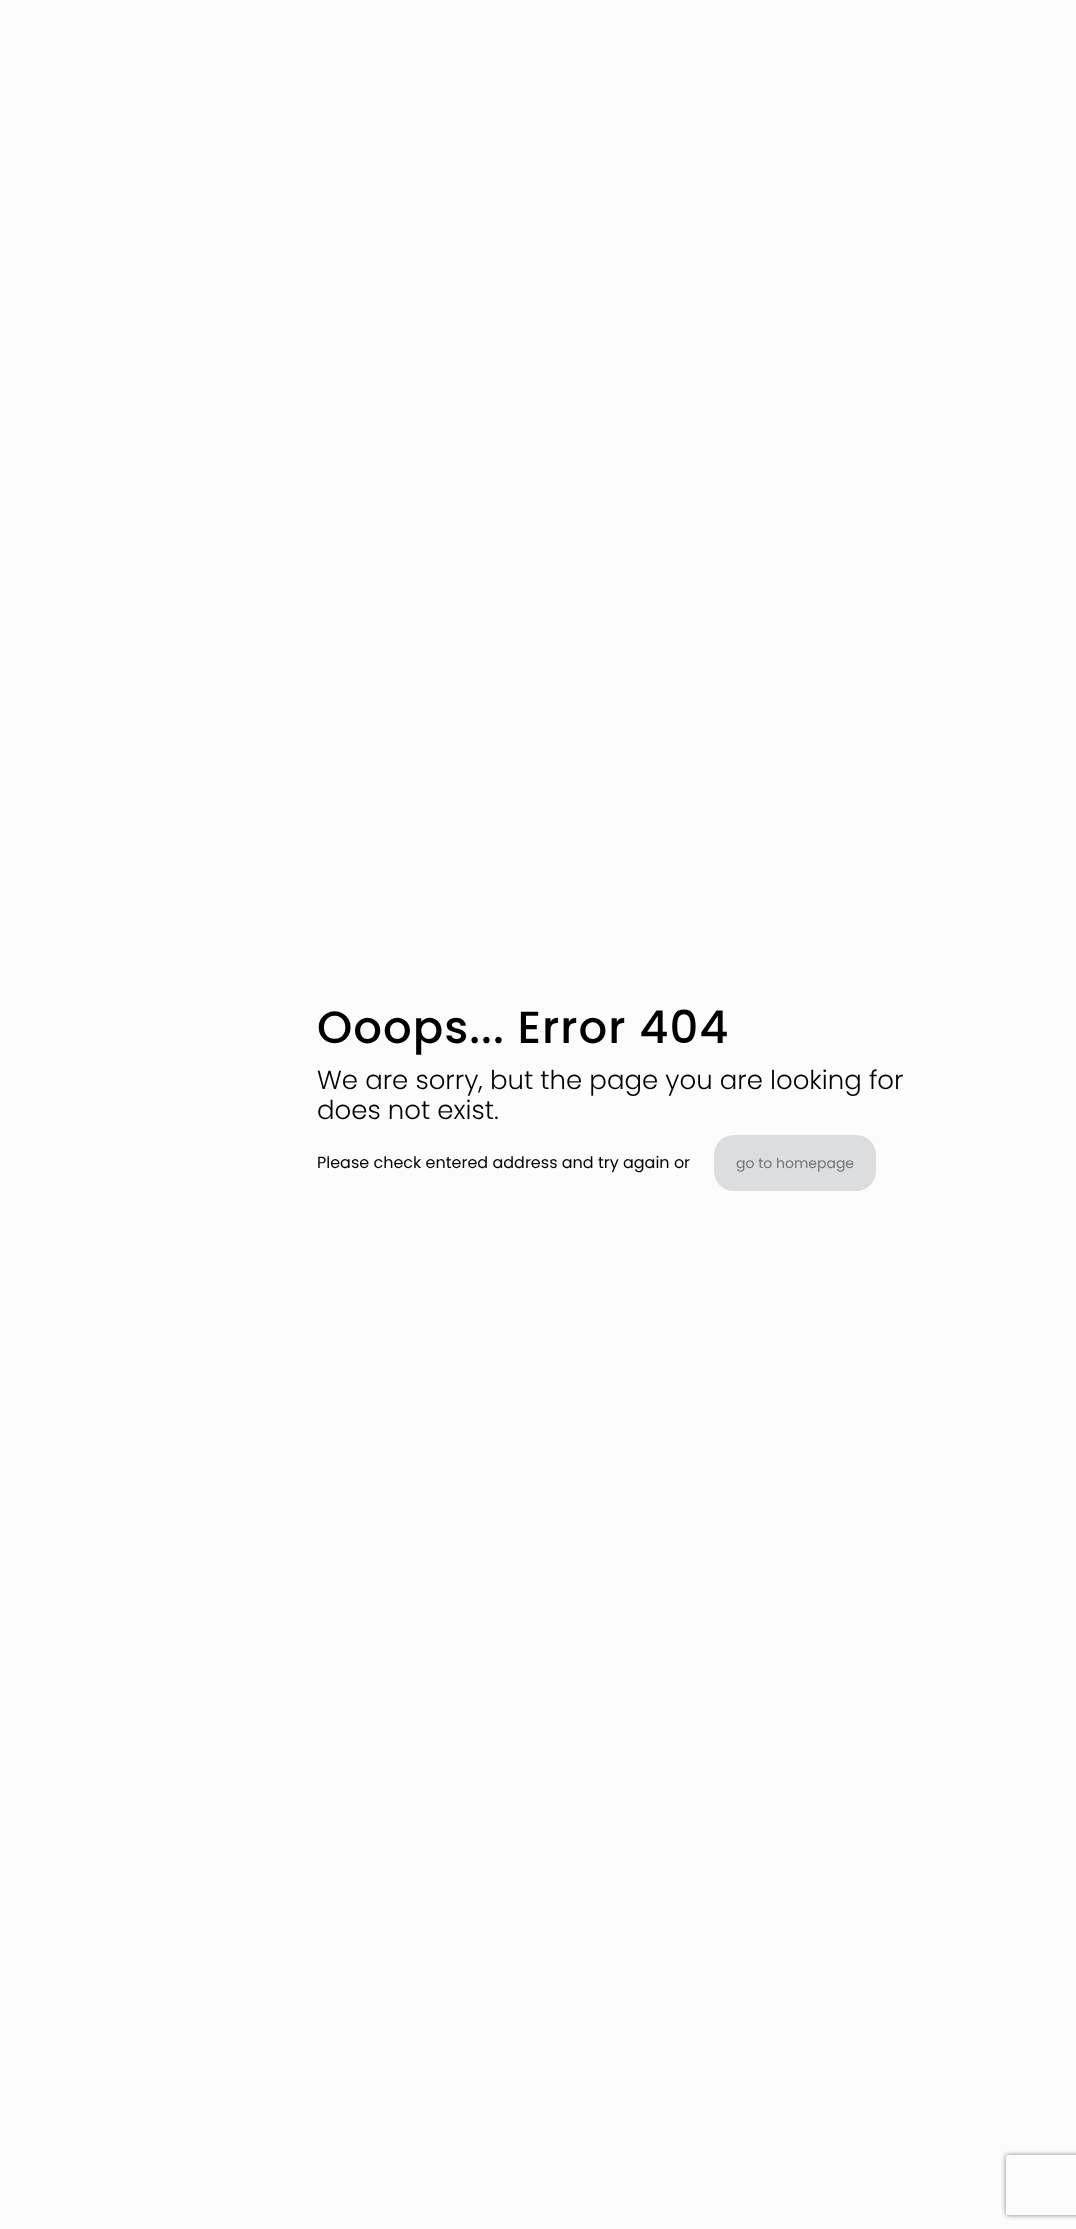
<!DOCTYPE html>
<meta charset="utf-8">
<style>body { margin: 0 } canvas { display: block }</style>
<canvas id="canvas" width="1076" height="2229"></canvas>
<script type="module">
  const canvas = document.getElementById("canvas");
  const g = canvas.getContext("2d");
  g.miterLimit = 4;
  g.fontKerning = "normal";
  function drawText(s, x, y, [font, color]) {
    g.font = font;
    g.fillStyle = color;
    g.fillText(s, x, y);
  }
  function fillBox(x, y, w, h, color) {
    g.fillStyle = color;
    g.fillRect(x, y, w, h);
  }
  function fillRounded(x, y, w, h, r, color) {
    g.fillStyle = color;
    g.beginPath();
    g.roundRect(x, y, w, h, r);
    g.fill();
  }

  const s1 = ["500 45px Poppins", "#000000"];
  const s2 = ["300 26px Poppins", "#000000"];
  const s3 = ["16px Poppins", "#000000"];
  const s4 = ["14px Poppins", "#747474"];

  fillBox(0, 0, 1076, 2229, "#FCFCFC");
  g.letterSpacing = "1px";
  drawText("Ooops... Error 404", 317, 1043, s1);
  g.letterSpacing = "0px";
  drawText("We are sorry, but the page you are looking for", 317, 1089, s2);
  drawText("does not exist.", 317, 1119, s2);
  drawText("Please check entered address and try again or", 317, 1168, s3);
  fillRounded(714, 1135, 162, 56, 20, "#DBDDDF");
  drawText("go to homepage", 736, 1168, s4);
  g.save();
  g.beginPath();
  g.moveTo(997, 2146);
  g.lineTo(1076, 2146);
  g.lineTo(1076, 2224);
  g.lineTo(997, 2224);
  g.closePath();
  g.moveTo(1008, 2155);
  g.lineTo(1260, 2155);
  g.bezierCurveTo(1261, 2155, 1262, 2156, 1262, 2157);
  g.lineTo(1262, 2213);
  g.bezierCurveTo(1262, 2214, 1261, 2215, 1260, 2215);
  g.lineTo(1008, 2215);
  g.bezierCurveTo(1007, 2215, 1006, 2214, 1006, 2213);
  g.lineTo(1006, 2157);
  g.bezierCurveTo(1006, 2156, 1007, 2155, 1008, 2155);
  g.closePath();
  g.clip("evenodd");
  g.fillStyle = "#808080";
  g.filter = "blur(2.5px)";
  g.beginPath();
  g.roundRect(1006, 2155, 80, 60, 2);
  g.fill();
  g.filter = "none";
  g.restore();
</script>
